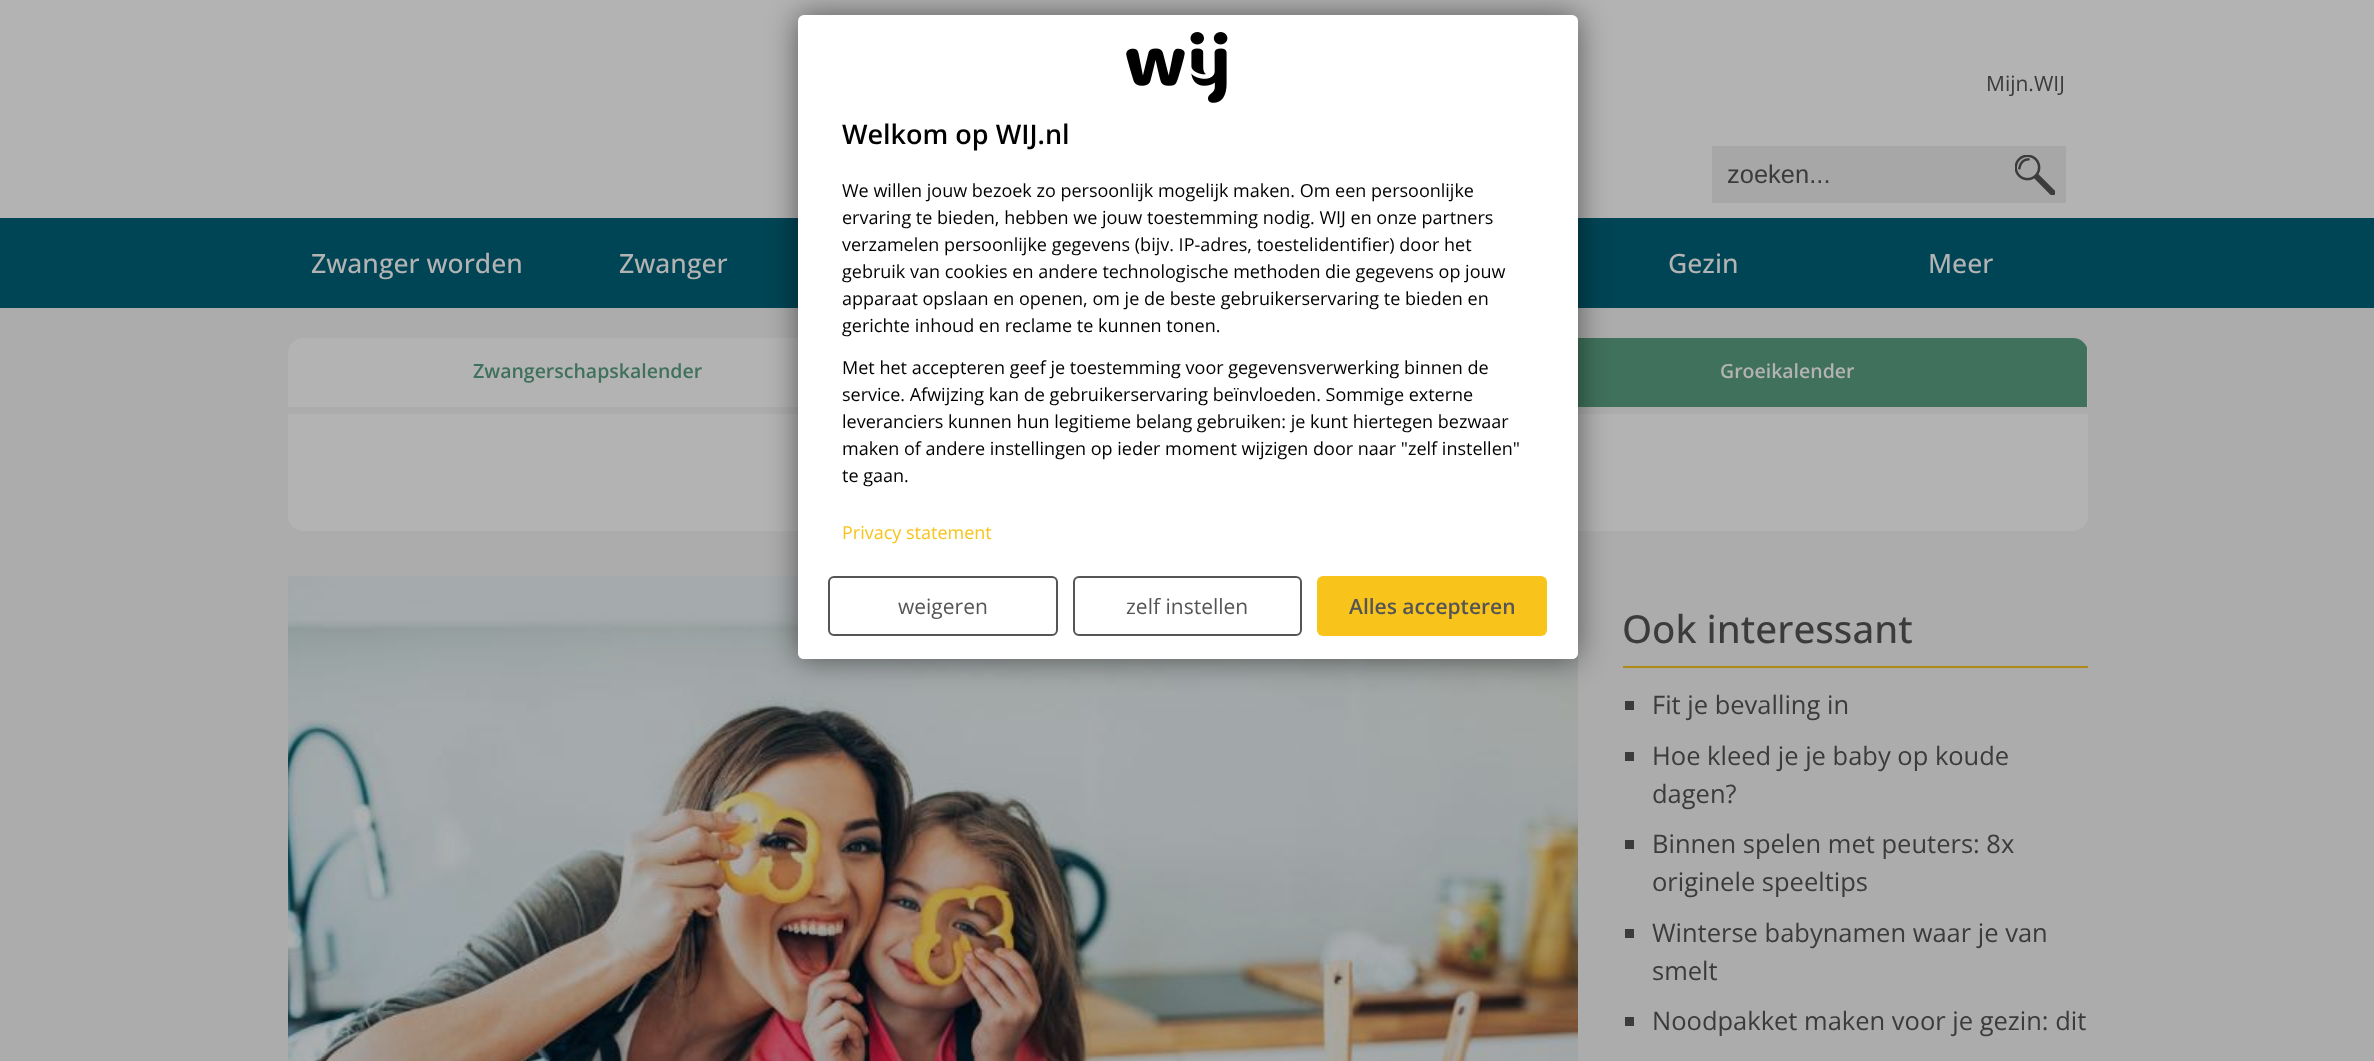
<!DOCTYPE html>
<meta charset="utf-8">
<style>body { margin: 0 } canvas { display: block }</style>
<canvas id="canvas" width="2374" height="1061"></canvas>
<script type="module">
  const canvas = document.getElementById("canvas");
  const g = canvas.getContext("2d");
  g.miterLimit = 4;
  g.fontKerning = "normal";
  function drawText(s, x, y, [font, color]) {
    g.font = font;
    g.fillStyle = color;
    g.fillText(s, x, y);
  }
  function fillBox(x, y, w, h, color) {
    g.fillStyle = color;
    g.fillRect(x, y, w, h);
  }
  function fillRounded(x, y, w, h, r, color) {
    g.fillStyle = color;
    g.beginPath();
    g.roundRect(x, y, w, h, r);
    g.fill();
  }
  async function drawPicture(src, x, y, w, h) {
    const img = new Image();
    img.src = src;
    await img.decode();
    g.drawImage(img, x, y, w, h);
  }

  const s1 = ["600 27px Open Sans", "#000000"];
  const s2 = ["18px Open Sans", "#000000"];
  const s3 = ["18px Open Sans", "#F8C31B"];
  const s4 = ["21px Open Sans", "#555555"];
  const s5 = ["600 21px Open Sans", "#555555"];
  const s6 = ["21px Open Sans", "#3B3B3B"];
  const s7 = ["25.5px Liberation Sans", "#3B3B3B"];
  const s8 = ["500 26.5px Open Sans", "#B3B3B3"];
  const s9 = ["600 19.5px Open Sans", "#40715C"];
  const s10 = ["600 19.5px Open Sans", "#B3B3B3"];
  const s11 = ["500 38.5px Open Sans", "#3B3B3B"];
  const s12 = ["25.5px Open Sans", "#3B3B3B"];

  fillBox(0, 0, 2374, 1061, "#ACACAC");
  fillBox(0, 0, 2374, 218, "#B3B3B3");
  fillBox(0, 218, 2374, 90, "#004555");
  g.fillStyle = "#B3B3B3";
  g.beginPath();
  g.roundRect(288, 338, 1800, 69, [15, 15, 0, 0]);
  g.fill();
  g.save();
  g.beginPath();
  g.roundRect(288, 338, 1800, 69, [15, 15, 0, 0]);
  g.clip();
  fillBox(1578, 338, 509, 69, "#40715C");
  g.restore();
  g.beginPath();
  g.roundRect(288, 414, 1800, 117, [0, 0, 15, 15]);
  g.fill();
  await drawPicture("pic3.png", 288, 576, 1290, 485);
  fillBox(1623, 666, 465, 2, "#AE8913");
  g.fillStyle = "rgba(0, 0, 0, 0.5)";
  g.filter = "blur(15px)";
  g.beginPath();
  g.roundRect(798, 15, 780, 644, 6);
  g.fill();
  g.filter = "none";
  fillRounded(798, 15, 780, 644, 6, "#FFFFFF");
  await drawPicture("pic1.png", 1126, 32, 102, 71);
  drawText("Welkom op WIJ.nl", 842, 144, s1);
  drawText("We willen jouw bezoek zo persoonlijk mogelijk maken. Om een persoonlijke", 842, 197, s2);
  drawText("ervaring te bieden, hebben we jouw toestemming nodig. WIJ en onze partners", 842, 224, s2);
  drawText("verzamelen persoonlijke gegevens (bijv. IP-adres, toestelidentifier) door het", 842, 251, s2);
  drawText("gebruik van cookies en andere technologische methoden die gegevens op jouw", 842, 278, s2);
  drawText("apparaat opslaan en openen, om je de beste gebruikerservaring te bieden en", 842, 305, s2);
  drawText("gerichte inhoud en reclame te kunnen tonen.", 842, 332, s2);
  drawText("Met het accepteren geef je toestemming voor gegevensverwerking binnen de", 842, 374, s2);
  drawText("service. Afwijzing kan de gebruikerservaring beïnvloeden. Sommige externe", 842, 401, s2);
  drawText("leveranciers kunnen hun legitieme belang gebruiken: je kunt hiertegen bezwaar", 842, 428, s2);
  drawText("maken of andere instellingen op ieder moment wijzigen door naar \"zelf instellen\"", 842, 455, s2);
  drawText("te gaan.", 842, 482, s2);
  g.fillStyle = "#FFFFFF";
  g.beginPath();
  g.roundRect(798, 504, 780, 155, [0, 0, 6, 6]);
  g.fill();
  drawText("Privacy statement", 842, 539, s3);
  g.beginPath();
  g.roundRect(829, 577, 228, 58, 5);
  g.strokeStyle = "#555555";
  g.lineWidth = 2;
  g.stroke();
  drawText("weigeren", 898, 614, s4);
  g.beginPath();
  g.roundRect(1074, 577, 227, 58, 5);
  g.stroke();
  drawText("zelf instellen", 1126, 614, s4);
  fillRounded(1317, 576, 230, 60, 6, "#F8C31B");
  drawText("Alles accepteren", 1349, 614, s5);
  drawText("Mijn.WIJ", 1986, 91, s6);
  fillBox(1712, 146, 354, 57, "#A7A7A7");
  drawText("zoeken...", 1727, 183, s7);
  await drawPicture("pic2.png", 2015, 155, 40, 40);
  drawText("Zwanger worden", 311, 273, s8);
  drawText("Zwanger", 619, 273, s8);
  drawText("Gezin", 1668, 273, s8);
  drawText("Meer", 1928, 273, s8);
  drawText("Zwangerschapskalender", 473, 378, s9);
  drawText("Groeikalender", 1720, 378, s10);
  drawText("Ook interessant", 1622, 643, s11);
  fillBox(1625, 701, 9, 9, "#3B3B3B");
  drawText("Fit je bevalling in", 1652, 714, s12);
  fillBox(1625, 752, 9, 9, "#3B3B3B");
  drawText("Hoe kleed je je baby op koude", 1652, 765, s12);
  drawText("dagen?", 1652, 803, s12);
  fillBox(1625, 840, 9, 9, "#3B3B3B");
  drawText("Binnen spelen met peuters: 8x", 1652, 853, s12);
  drawText("originele speeltips", 1652, 891, s12);
  fillBox(1625, 929, 9, 9, "#3B3B3B");
  drawText("Winterse babynamen waar je van", 1652, 942, s12);
  drawText("smelt", 1652, 980, s12);
  fillBox(1625, 1017, 9, 9, "#3B3B3B");
  drawText("Noodpakket maken voor je gezin: dit", 1652, 1030, s12);
</script>
